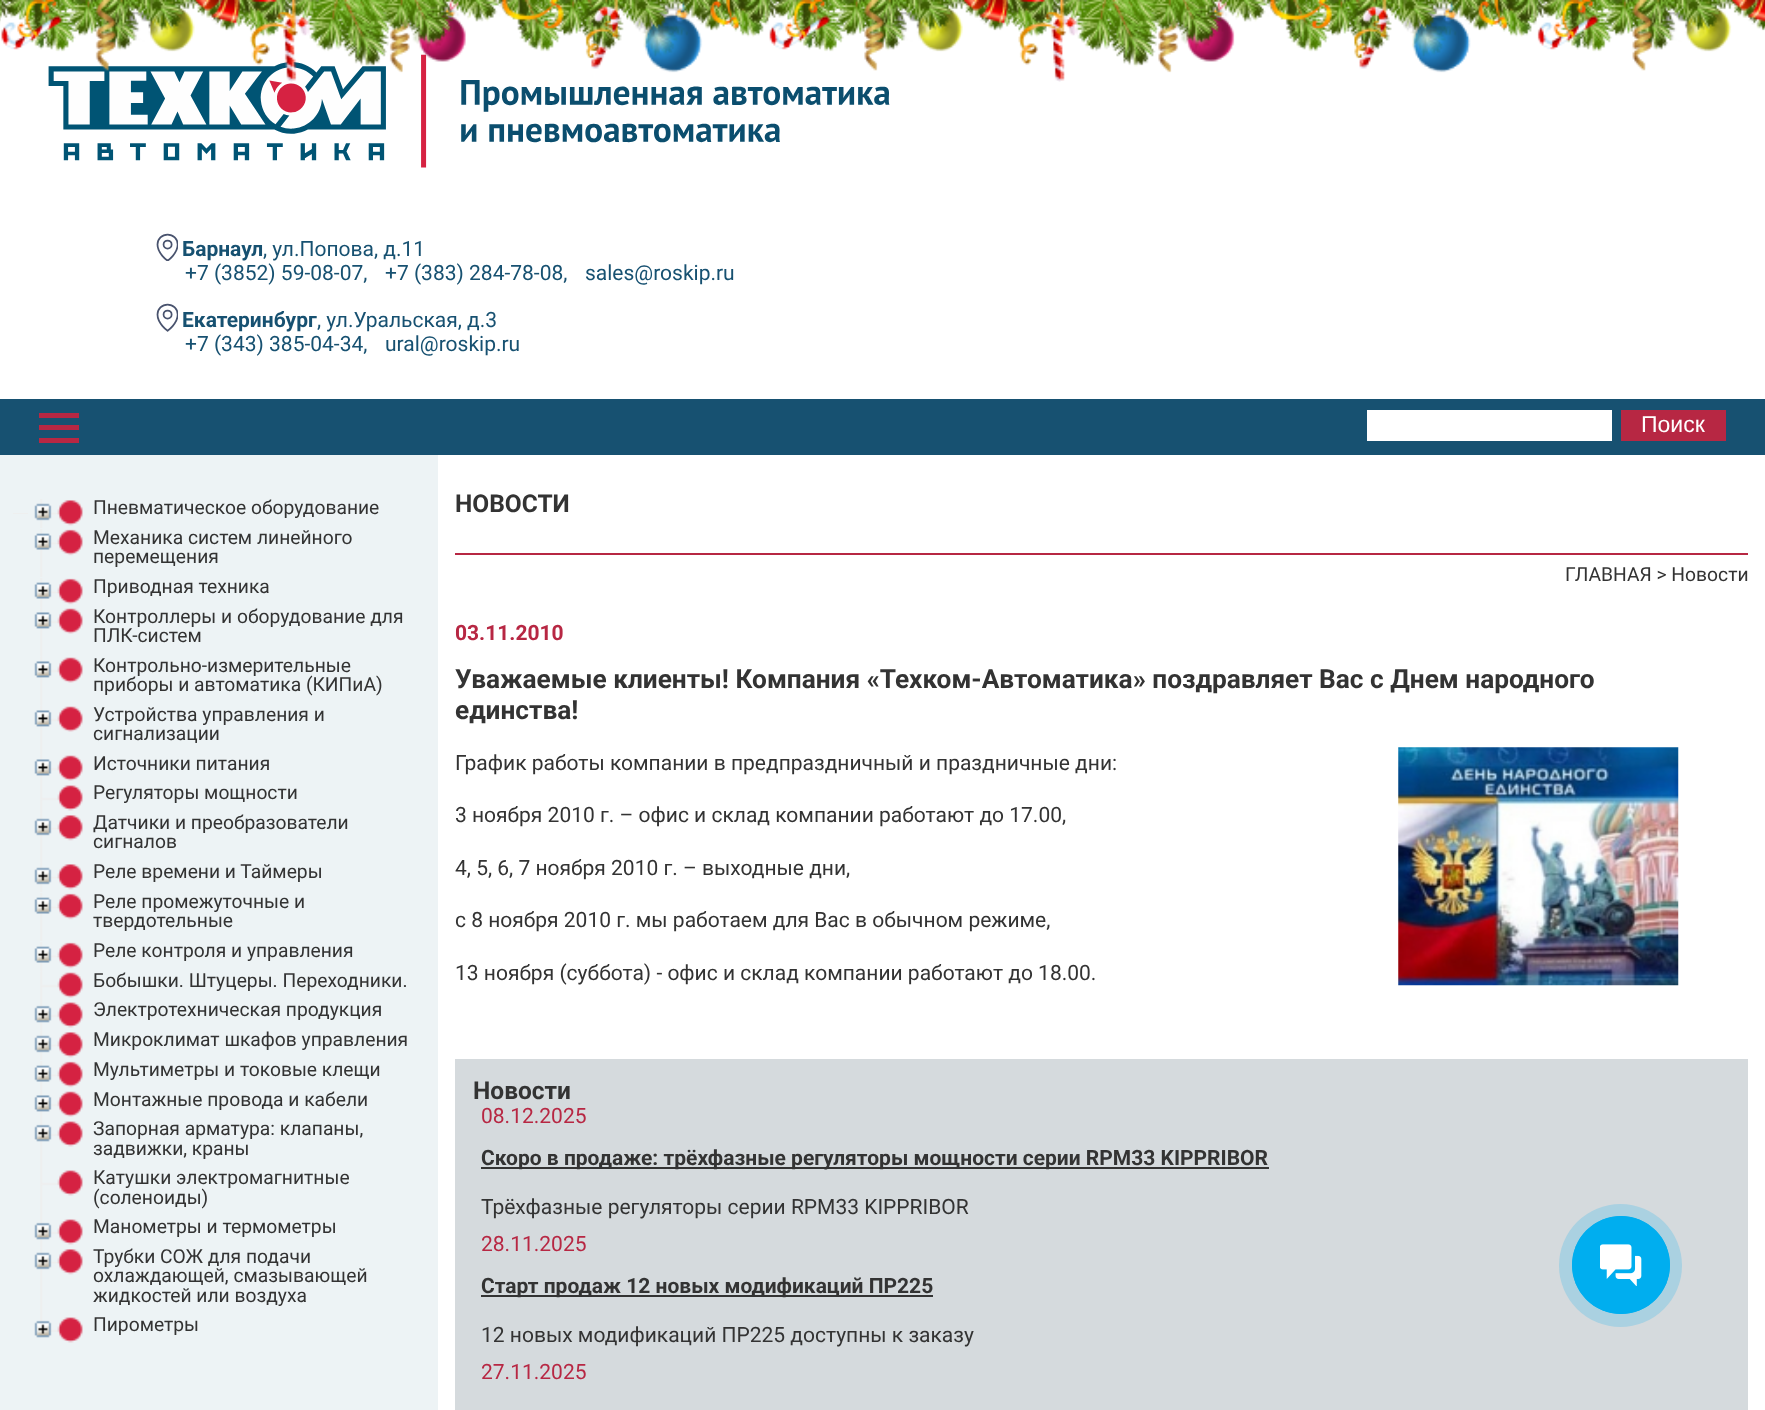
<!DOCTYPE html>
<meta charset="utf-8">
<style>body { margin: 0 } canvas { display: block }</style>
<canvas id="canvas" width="1765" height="1410"></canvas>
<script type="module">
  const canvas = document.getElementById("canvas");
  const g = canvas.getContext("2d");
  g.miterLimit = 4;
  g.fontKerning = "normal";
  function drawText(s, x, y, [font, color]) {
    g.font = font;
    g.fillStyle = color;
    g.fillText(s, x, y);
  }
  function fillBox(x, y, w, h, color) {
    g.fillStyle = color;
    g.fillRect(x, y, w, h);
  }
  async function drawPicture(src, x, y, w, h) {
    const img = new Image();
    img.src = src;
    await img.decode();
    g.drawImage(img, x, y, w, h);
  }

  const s1 = ["bold 21px Roboto", "#175171"];
  const s2 = ["21px Roboto", "#175171"];
  const s3 = ["23px Liberation Sans", "#FFFFFF"];
  const s4 = ["19.25px Roboto", "#333333"];
  const s5 = ["bold 24.5px Roboto", "#333333"];
  const s6 = ["bold 21px Roboto", "#B72743"];
  const s7 = ["bold 26.25px Roboto", "#333333"];
  const s8 = ["21px Roboto", "#333333"];
  const s9 = ["21px Roboto", "#B72743"];
  const s10 = ["bold 21px Roboto", "#333333"];

  fillBox(0, 0, 1765, 1410, "#FFFFFF");
  await drawPicture("pic2.png", 48, 54, 842, 114);
  await drawPicture("pic1.png", 0, 0, 1765, 82);
  await drawPicture("pic3.png", 156, 233, 22, 28);
  drawText("Барнаул", 182, 256, s1);
  drawText(", ул.Попова, д.11", 263, 256, s2);
  drawText("+7 (3852) 59-08-07,", 185, 280, s2);
  drawText("+7 (383) 284-78-08,", 385, 280, s2);
  drawText("sales@roskip.ru", 585, 280, s2);
  await drawPicture("pic4.png", 156, 303, 22, 29);
  drawText("Екатеринбург", 182, 327, s1);
  drawText(", ул.Уральская, д.3", 317, 327, s2);
  drawText("+7 (343) 385-04-34,", 185, 351, s2);
  drawText("ural@roskip.ru", 385, 351, s2);
  fillBox(0, 399, 1765, 56, "#175171");
  fillBox(39, 425, 40, 5, "#B72743");
  fillBox(39, 413, 40, 5, "#B72743");
  fillBox(39, 438, 40, 5, "#B72743");
  fillBox(1367, 410, 245, 31, "#FFFFFF");
  fillBox(1621, 410, 105, 31, "#B72743");
  drawText("Поиск", 1641, 432, s3);
  fillBox(0, 455, 438, 955, "#EDF3F5");
  fillBox(13, 513, 15, 1, "#EEEFEF");
  await drawPicture("pic5.png", 40, 499, 16, 29);
  await drawPicture("pic6.png", 34, 503, 18, 18);
  await drawPicture("pic7.png", 56, 513, 4, 1);
  await drawPicture("pic8.png", 57, 500, 26, 26);
  drawText("Пневматическое оборудование", 93, 514, s4);
  await drawPicture("pic9.png", 40, 529, 16, 48);
  await drawPicture("pic10.png", 34, 533, 18, 17);
  await drawPicture("pic11.png", 56, 543, 4, 1);
  await drawPicture("pic12.png", 57, 529, 26, 27);
  drawText("Механика систем линейного", 93, 544, s4);
  drawText("перемещения", 93, 563, s4);
  await drawPicture("pic13.png", 40, 578, 16, 29);
  await drawPicture("pic10.png", 34, 582, 18, 17);
  await drawPicture("pic11.png", 56, 592, 4, 1);
  await drawPicture("pic12.png", 57, 578, 26, 27);
  drawText("Приводная техника", 93, 593, s4);
  await drawPicture("pic14.png", 40, 607, 16, 49);
  await drawPicture("pic15.png", 34, 612, 18, 17);
  await drawPicture("pic16.png", 56, 621, 5, 2);
  await drawPicture("pic17.png", 57, 608, 26, 26);
  drawText("Контроллеры и оборудование для", 93, 623, s4);
  drawText("ПЛК-систем", 93, 642, s4);
  await drawPicture("pic14.png", 40, 656, 16, 49);
  await drawPicture("pic15.png", 34, 661, 18, 17);
  await drawPicture("pic16.png", 56, 670, 5, 2);
  await drawPicture("pic17.png", 57, 657, 26, 26);
  drawText("Контрольно-измерительные", 93, 672, s4);
  drawText("приборы и автоматика (КИПиА)", 93, 691, s4);
  await drawPicture("pic14.png", 40, 705, 16, 49);
  await drawPicture("pic15.png", 34, 710, 18, 17);
  await drawPicture("pic16.png", 56, 719, 5, 2);
  await drawPicture("pic17.png", 57, 706, 26, 26);
  drawText("Устройства управления и", 93, 721, s4);
  drawText("сигнализации", 93, 740, s4);
  await drawPicture("pic18.png", 40, 754, 16, 30);
  await drawPicture("pic15.png", 34, 759, 18, 17);
  await drawPicture("pic16.png", 56, 768, 5, 2);
  await drawPicture("pic17.png", 57, 755, 26, 26);
  drawText("Источники питания", 93, 770, s4);
  await drawPicture("pic19.png", 40, 784, 16, 30);
  await drawPicture("pic20.png", 56, 798, 6, 2);
  await drawPicture("pic21.png", 57, 785, 26, 26);
  drawText("Регуляторы мощности", 93, 799, s4);
  await drawPicture("pic22.png", 40, 814, 16, 49);
  await drawPicture("pic6.png", 34, 818, 18, 18);
  await drawPicture("pic7.png", 56, 828, 4, 1);
  await drawPicture("pic8.png", 57, 815, 26, 26);
  drawText("Датчики и преобразователи", 93, 829, s4);
  drawText("сигналов", 93, 848, s4);
  await drawPicture("pic5.png", 40, 863, 16, 29);
  await drawPicture("pic6.png", 34, 867, 18, 18);
  await drawPicture("pic7.png", 56, 877, 4, 1);
  await drawPicture("pic8.png", 57, 864, 26, 26);
  drawText("Реле времени и Таймеры", 93, 878, s4);
  await drawPicture("pic9.png", 40, 893, 16, 48);
  await drawPicture("pic10.png", 34, 897, 18, 17);
  await drawPicture("pic11.png", 56, 907, 4, 1);
  await drawPicture("pic12.png", 57, 893, 26, 27);
  drawText("Реле промежуточные и", 93, 908, s4);
  drawText("твердотельные", 93, 927, s4);
  await drawPicture("pic13.png", 40, 942, 16, 29);
  await drawPicture("pic10.png", 34, 946, 18, 17);
  await drawPicture("pic11.png", 56, 956, 4, 1);
  await drawPicture("pic12.png", 57, 942, 26, 27);
  drawText("Реле контроля и управления", 93, 957, s4);
  await drawPicture("pic18.png", 40, 971, 16, 30);
  await drawPicture("pic16.png", 56, 985, 5, 2);
  await drawPicture("pic17.png", 57, 972, 26, 26);
  drawText("Бобышки. Штуцеры. Переходники.", 93, 987, s4);
  await drawPicture("pic19.png", 40, 1001, 16, 30);
  await drawPicture("pic23.png", 34, 1005, 18, 18);
  await drawPicture("pic20.png", 56, 1015, 6, 2);
  await drawPicture("pic21.png", 57, 1002, 26, 26);
  drawText("Электротехническая продукция", 93, 1016, s4);
  await drawPicture("pic5.png", 40, 1031, 16, 29);
  await drawPicture("pic6.png", 34, 1035, 18, 18);
  await drawPicture("pic7.png", 56, 1045, 4, 1);
  await drawPicture("pic8.png", 57, 1032, 26, 26);
  drawText("Микроклимат шкафов управления", 93, 1046, s4);
  await drawPicture("pic13.png", 40, 1061, 16, 29);
  await drawPicture("pic10.png", 34, 1065, 18, 17);
  await drawPicture("pic11.png", 56, 1075, 4, 1);
  await drawPicture("pic12.png", 57, 1061, 26, 27);
  drawText("Мультиметры и токовые клещи", 93, 1076, s4);
  await drawPicture("pic18.png", 40, 1090, 16, 30);
  await drawPicture("pic15.png", 34, 1095, 18, 17);
  await drawPicture("pic16.png", 56, 1104, 5, 2);
  await drawPicture("pic17.png", 57, 1091, 26, 26);
  drawText("Монтажные провода и кабели", 93, 1106, s4);
  await drawPicture("pic24.png", 40, 1120, 16, 49);
  await drawPicture("pic23.png", 34, 1124, 18, 18);
  await drawPicture("pic20.png", 56, 1134, 6, 2);
  await drawPicture("pic21.png", 57, 1121, 26, 26);
  drawText("Запорная арматура: клапаны,", 93, 1135, s4);
  drawText("задвижки, краны", 93, 1155, s4);
  await drawPicture("pic24.png", 40, 1169, 16, 49);
  await drawPicture("pic20.png", 56, 1183, 6, 2);
  await drawPicture("pic21.png", 57, 1170, 26, 26);
  drawText("Катушки электромагнитные", 93, 1184, s4);
  drawText("(соленоиды)", 93, 1204, s4);
  await drawPicture("pic19.png", 40, 1218, 16, 30);
  await drawPicture("pic23.png", 34, 1222, 18, 18);
  await drawPicture("pic20.png", 56, 1232, 6, 2);
  await drawPicture("pic21.png", 57, 1219, 26, 26);
  drawText("Манометры и термометры", 93, 1233, s4);
  await drawPicture("pic25.png", 40, 1248, 16, 68);
  await drawPicture("pic6.png", 34, 1252, 18, 18);
  await drawPicture("pic7.png", 56, 1262, 4, 1);
  await drawPicture("pic8.png", 57, 1249, 26, 26);
  drawText("Трубки СОЖ для подачи", 93, 1263, s4);
  drawText("охлаждающей, смазывающей", 93, 1282, s4);
  drawText("жидкостей или воздуха", 93, 1302, s4);
  await drawPicture("pic26.png", 40, 1316, 16, 16);
  await drawPicture("pic27.png", 34, 1320, 18, 18);
  await drawPicture("pic20.png", 56, 1330, 6, 2);
  await drawPicture("pic21.png", 57, 1317, 26, 26);
  drawText("Пирометры", 93, 1331, s4);
  fillBox(455, 553, 1293, 2, "#B72743");
  drawText("НОВОСТИ", 455, 512, s5);
  drawText("ГЛАВНАЯ > Новости", 1565, 581, s4);
  drawText("03.11.2010", 455, 640, s6);
  drawText("Уважаемые клиенты! Компания «Техком-Автоматика» поздравляет Вас с Днем народного", 455, 688, s7);
  drawText("единства!", 455, 719, s7);
  drawText("График работы компании в предпраздничный и праздничные дни:", 455, 770, s8);
  await drawPicture("pic28.png", 1398, 747, 281, 239);
  drawText("3 ноября 2010 г. – офис и склад компании работают до 17.00,", 455, 822, s8);
  drawText("4, 5, 6, 7 ноября 2010 г. – выходные дни,", 455, 875, s8);
  drawText("с 8 ноября 2010 г. мы работаем для Вас в обычном режиме,", 455, 927, s8);
  drawText("13 ноября (суббота) - офис и склад компании работают до 18.00.", 455, 980, s8);
  fillBox(455, 1059, 1293, 351, "#D5DADD");
  drawText("Новости", 473, 1099, s5);
  drawText("08.12.2025", 481, 1123, s9);
  fillBox(481, 1167, 788, 2, "#333333");
  drawText("Скоро в продаже: трёхфазные регуляторы мощности серии RPM33 KIPPRIBOR", 481, 1165, s10);
  drawText("Трёхфазные регуляторы серии RPM33 KIPPRIBOR", 481, 1214, s8);
  drawText("28.11.2025", 481, 1251, s9);
  fillBox(481, 1295, 452, 2, "#333333");
  drawText("Старт продаж 12 новых модификаций ПР225", 481, 1293, s10);
  drawText("12 новых модификаций ПР225 доступны к заказу", 481, 1342, s8);
  drawText("27.11.2025", 481, 1379, s9);
  g.fillStyle = "#AAD1E1";
  g.beginPath();
  g.arc(1620.5, 1265.5, 61.5, 0, Math.PI * 2);
  g.fill();
  g.beginPath();
  g.arc(1621, 1265, 48.5, 0, Math.PI * 2);
  g.strokeStyle = "#00AEEF";
  g.stroke();
  g.fillStyle = "#00AEEF";
  g.beginPath();
  g.arc(1621, 1265, 49, 0, Math.PI * 2);
  g.fill();
  await drawPicture("pic29.png", 1600, 1244, 42, 42);
</script>
